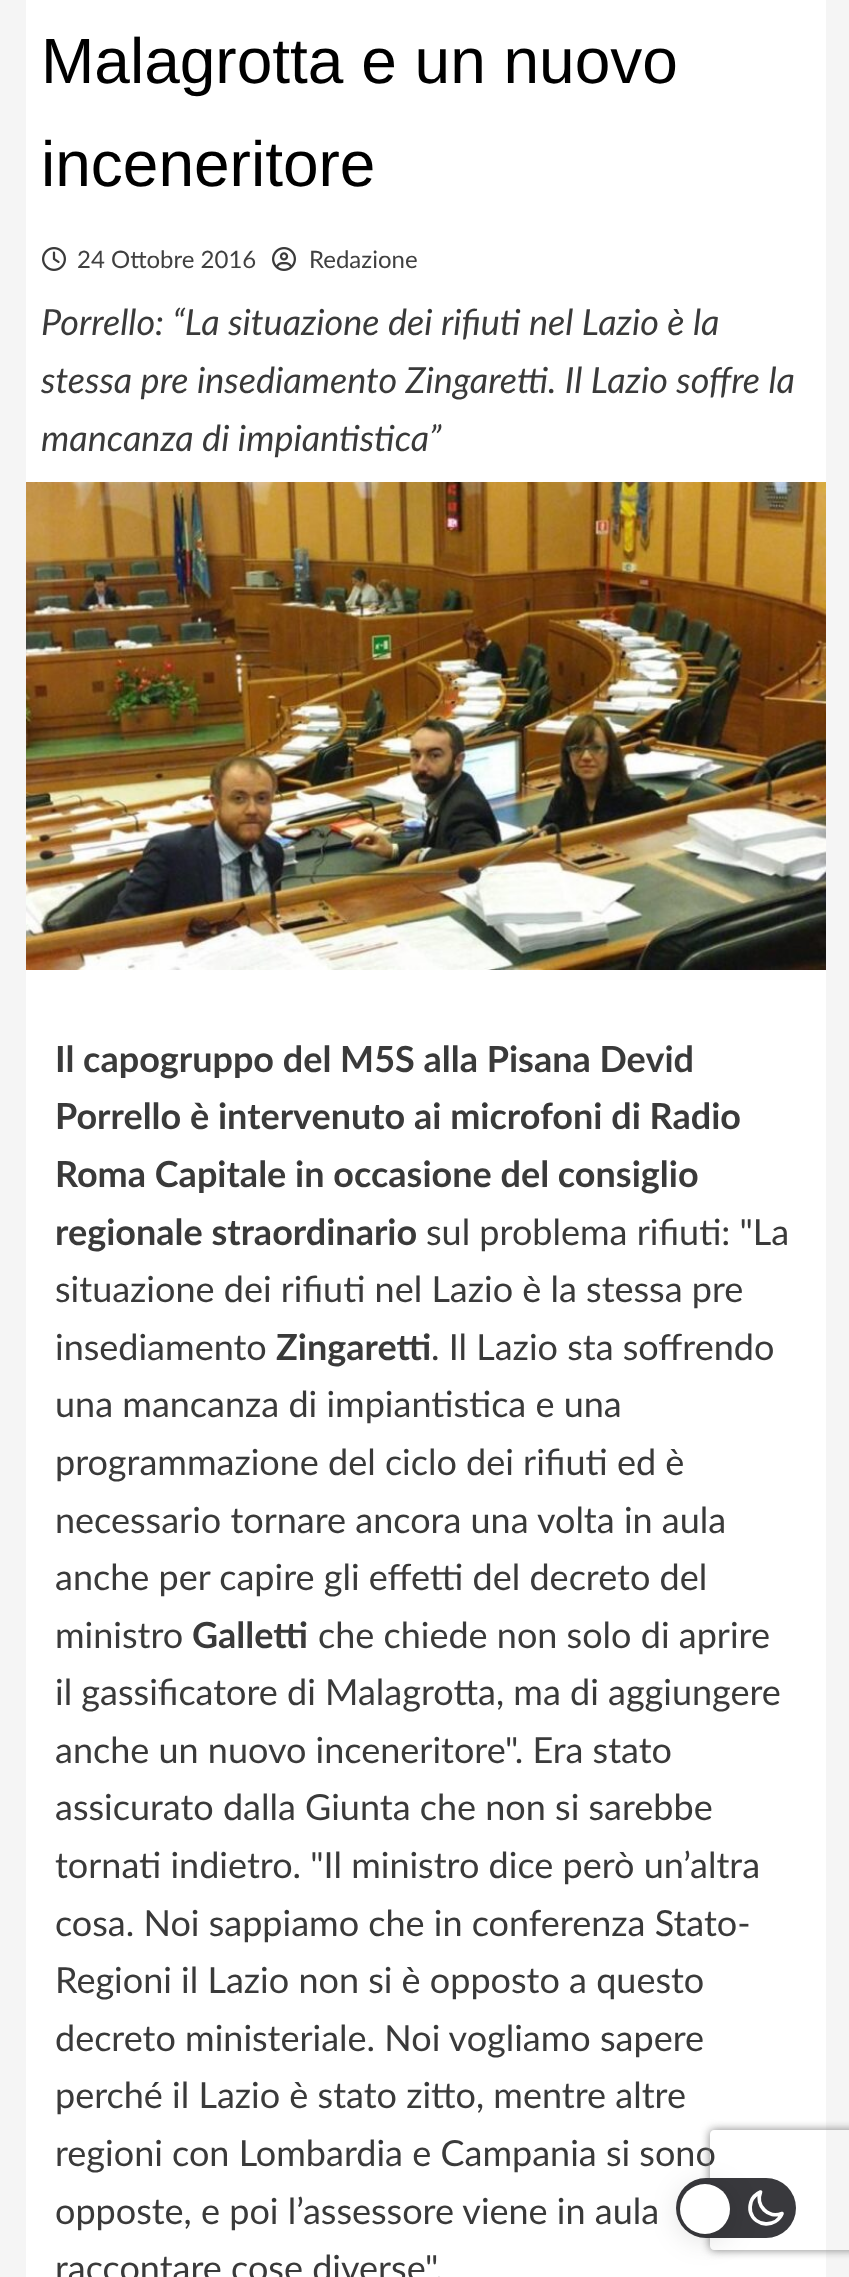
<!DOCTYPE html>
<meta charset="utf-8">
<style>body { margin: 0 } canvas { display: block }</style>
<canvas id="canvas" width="849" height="2277"></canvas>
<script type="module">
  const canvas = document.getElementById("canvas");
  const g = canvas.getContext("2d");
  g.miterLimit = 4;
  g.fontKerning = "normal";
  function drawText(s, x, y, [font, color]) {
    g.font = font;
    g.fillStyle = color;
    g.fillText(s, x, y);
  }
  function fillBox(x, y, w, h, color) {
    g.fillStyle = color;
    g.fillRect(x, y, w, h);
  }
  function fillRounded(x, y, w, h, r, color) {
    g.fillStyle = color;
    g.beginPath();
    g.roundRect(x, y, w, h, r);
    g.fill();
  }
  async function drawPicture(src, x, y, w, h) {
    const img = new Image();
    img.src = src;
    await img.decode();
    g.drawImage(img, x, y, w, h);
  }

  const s1 = ["64px Liberation Sans", "#000000"];
  const s2 = ["24px Lato", "#404040"];
  const s3 = ["italic 36px Lato", "#3A3A3A"];
  const s4 = ["bold 36px Lato", "#3A3A3A"];
  const s5 = ["36px Lato", "#3A3A3A"];

  fillBox(0, 0, 849, 2277, "#F5F5F5");
  fillBox(26, 0, 800, 2277, "#FFFFFF");
  drawText("Malagrotta e un nuovo", 41, 83, s1);
  drawText("inceneritore", 41, 186, s1);
  await drawPicture("pic1.png", 42, 247, 24, 24);
  drawText("24 Ottobre 2016", 77, 268, s2);
  await drawPicture("pic2.png", 272, 247, 24, 24);
  drawText("Redazione", 309, 268, s2);
  drawText("Porrello: “La situazione dei rifiuti nel Lazio è la", 41, 335, s3);
  drawText("stessa pre insediamento Zingaretti. Il Lazio soffre la", 41, 393, s3);
  drawText("mancanza di impiantistica”", 41, 451, s3);
  await drawPicture("pic3.png", 26, 482, 800, 488);
  drawText("Il capogruppo del M5S alla Pisana Devid", 55, 1072, s4);
  drawText("Porrello è intervenuto ai microfoni di Radio", 55, 1129, s4);
  drawText("Roma Capitale in occasione del consiglio", 55, 1187, s4);
  drawText("regionale straordinario", 55, 1245, s4);
  drawText("sul problema rifiuti: \"La", 426, 1245, s5);
  drawText("situazione dei rifiuti nel Lazio è la stessa pre", 55, 1302, s5);
  drawText("insediamento", 55, 1360, s5);
  drawText("Zingaretti", 276, 1360, s4);
  drawText(". Il Lazio sta soffrendo", 431, 1360, s5);
  drawText("una mancanza di impiantistica e una", 55, 1417, s5);
  drawText("programmazione del ciclo dei rifiuti ed è", 55, 1475, s5);
  drawText("necessario tornare ancora una volta in aula", 55, 1533, s5);
  drawText("anche per capire gli effetti del decreto del", 55, 1590, s5);
  drawText("ministro", 55, 1648, s5);
  drawText("Galletti", 192, 1648, s4);
  drawText("che chiede non solo di aprire", 318, 1648, s5);
  drawText("il gassificatore di Malagrotta, ma di aggiungere", 55, 1705, s5);
  drawText("anche un nuovo inceneritore\". Era stato", 55, 1763, s5);
  drawText("assicurato dalla Giunta che non si sarebbe", 55, 1820, s5);
  drawText("tornati indietro. \"Il ministro dice però un’altra", 55, 1878, s5);
  drawText("cosa. Noi sappiamo che in conferenza Stato-", 55, 1936, s5);
  drawText("Regioni il Lazio non si è opposto a questo", 55, 1993, s5);
  drawText("decreto ministeriale. Noi vogliamo sapere", 55, 2051, s5);
  drawText("perché il Lazio è stato zitto, mentre altre", 55, 2108, s5);
  drawText("regioni con Lombardia e Campania si sono", 55, 2166, s5);
  drawText("opposte, e poi l’assessore viene in aula", 55, 2224, s5);
  drawText("raccontare cose diverse\".", 55, 2281, s5);
  g.save();
  g.beginPath();
  g.moveTo(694, 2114);
  g.lineTo(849, 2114);
  g.lineTo(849, 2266);
  g.lineTo(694, 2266);
  g.closePath();
  g.moveTo(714, 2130);
  g.lineTo(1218, 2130);
  g.bezierCurveTo(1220, 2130, 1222, 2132, 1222, 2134);
  g.lineTo(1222, 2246);
  g.bezierCurveTo(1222, 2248, 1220, 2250, 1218, 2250);
  g.lineTo(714, 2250);
  g.bezierCurveTo(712, 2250, 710, 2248, 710, 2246);
  g.lineTo(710, 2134);
  g.bezierCurveTo(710, 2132, 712, 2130, 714, 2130);
  g.closePath();
  g.clip("evenodd");
  g.fillStyle = "#808080";
  g.filter = "blur(5px)";
  g.beginPath();
  g.roundRect(710, 2130, 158, 120, 4);
  g.fill();
  g.filter = "none";
  g.restore();
  fillRounded(676, 2178, 120, 60, 30, "#39393D");
  g.beginPath();
  g.moveTo(782, 2213.5);
  g.bezierCurveTo(768.5, 2219, 755, 2205.5, 760.5, 2192);
  g.bezierCurveTo(756, 2194, 752.5, 2197.5, 751, 2202);
  g.bezierCurveTo(750, 2205.5, 749.5, 2208.5, 750.5, 2212);
  g.bezierCurveTo(755, 2227, 776, 2228, 782, 2213.5);
  g.closePath();
  g.strokeStyle = "#FFFFFF";
  g.lineWidth = 3.7;
  g.lineCap = "round";
  g.lineJoin = "round";
  g.stroke();
  g.fillStyle = "rgba(0, 0, 0, 0.15)";
  g.filter = "blur(15px)";
  g.beginPath();
  g.roundRect(680, 2188, 50, 50, 25);
  g.fill();
  g.filter = "none";
  g.fillStyle = "#FFFFFF";
  g.beginPath();
  g.arc(705, 2209, 25, 0, Math.PI * 2);
  g.fill();
</script>
